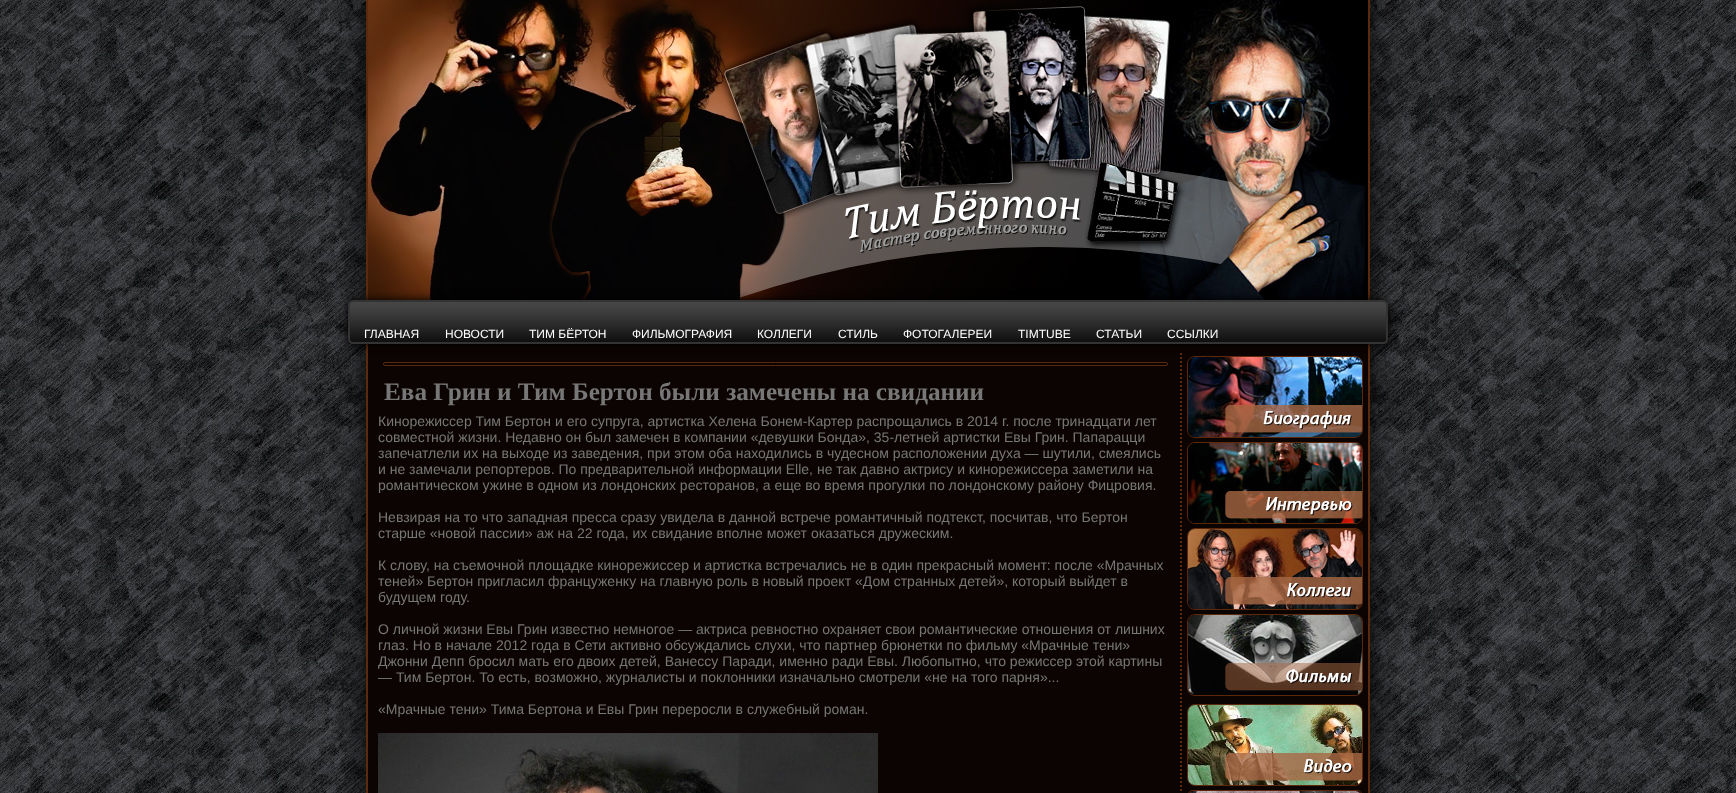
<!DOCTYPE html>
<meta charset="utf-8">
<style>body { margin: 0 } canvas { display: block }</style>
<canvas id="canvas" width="1736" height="793"></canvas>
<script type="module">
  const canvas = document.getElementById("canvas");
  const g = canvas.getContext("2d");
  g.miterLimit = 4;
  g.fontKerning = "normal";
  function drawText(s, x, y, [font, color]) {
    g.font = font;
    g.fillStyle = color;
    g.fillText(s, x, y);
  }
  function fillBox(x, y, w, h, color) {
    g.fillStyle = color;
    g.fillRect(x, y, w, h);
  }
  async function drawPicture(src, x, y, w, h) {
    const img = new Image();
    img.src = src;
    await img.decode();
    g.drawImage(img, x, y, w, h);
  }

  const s1 = ["12px Liberation Sans", "#FFFFFF"];
  const s2 = ["bold 25.2px Liberation Serif", "#777777"];
  const s3 = ["14px Liberation Sans", "#777777"];

  fillBox(0, 0, 1736, 793, "#FFFFFF");
  await drawPicture("pic1.png", 0, 0, 1736, 793);
  g.fillStyle = "#000000";
  g.filter = "blur(15px)";
  g.beginPath();
  g.rect(366, 0, 1004, 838);
  g.fill();
  g.filter = "none";
  fillBox(368, 344, 1000, 449, "#0C0402");
  fillBox(1368, 0, 2, 793, "#5B2A0C");
  fillBox(366, 0, 2, 793, "#5B2A0C");
  await drawPicture("pic2.png", 368, 0, 1000, 300);
  g.beginPath();
  g.moveTo(1181, 353);
  g.lineTo(1181, 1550);
  g.strokeStyle = "#5B2A0C";
  g.lineWidth = 2;
  g.setLineDash([2, 2]);
  g.stroke();
  g.beginPath();
  g.roundRect(1187.5, 356.5, 175, 81, 7.5);
  g.strokeStyle = "#5D2809";
  g.lineWidth = 1;
  g.setLineDash([]);
  g.stroke();
  await drawPicture("pic5.png", 1188, 357, 174, 80);
  g.fillStyle = "#000000";
  g.filter = "blur(5px)";
  g.beginPath();
  g.roundRect(348, 300, 1040, 44, 5);
  g.fill();
  g.filter = "none";
  await drawPicture("pic3.png", 348, 300, 1040, 44);
  g.beginPath();
  g.roundRect(349, 301, 1038, 42, 4);
  g.strokeStyle = "#333333";
  g.lineWidth = 2;
  g.stroke();
  drawText("ГЛАВНАЯ", 364, 338, s1);
  drawText("НОВОСТИ", 445, 338, s1);
  drawText("ТИМ БЁРТОН", 529, 338, s1);
  drawText("ФИЛЬМОГРАФИЯ", 632, 338, s1);
  drawText("КОЛЛЕГИ", 757, 338, s1);
  drawText("СТИЛЬ", 838, 338, s1);
  drawText("ФОТОГАЛЕРЕИ", 903, 338, s1);
  drawText("TIMTUBE", 1018, 338, s1);
  drawText("СТАТЬИ", 1096, 338, s1);
  drawText("ССЫЛКИ", 1167, 338, s1);
  g.beginPath();
  g.roundRect(383.5, 362.5, 784, 3, 1.5);
  g.strokeStyle = "#5B2A0C";
  g.lineWidth = 1;
  g.stroke();
  drawText("Ева Грин и Тим Бертон были замечены на свидании", 384, 400, s2);
  drawText("Кинорежиссер Тим Бертон и его супруга, артистка Хелена Бонем-Картер распрощались в 2014 г. после тринадцати лет", 378, 426, s3);
  drawText("совместной жизни. Недавно он был замечен в компании «девушки Бонда», 35-летней артистки Евы Грин. Папарацци", 378, 442, s3);
  drawText("запечатлели их на выходе из заведения, при этом оба находились в чудесном расположении духа — шутили, смеялись", 378, 458, s3);
  drawText("и не замечали репортеров. По предварительной информации Elle, не так давно актрису и кинорежиссера заметили на", 378, 474, s3);
  drawText("романтическом ужине в одном из лондонских ресторанов, а еще во время прогулки по лондонскому району Фицровия.", 378, 490, s3);
  drawText("Невзирая на то что западная пресса сразу увидела в данной встрече романтичный подтекст, посчитав, что Бертон", 378, 522, s3);
  drawText("старше «новой пассии» аж на 22 года, их свидание вполне может оказаться дружеским.", 378, 538, s3);
  drawText("К слову, на съемочной площадке кинорежиссер и артистка встречались не в один прекрасный момент: после «Мрачных", 378, 570, s3);
  drawText("теней» Бертон пригласил француженку на главную роль в новый проект «Дом странных детей», который выйдет в", 378, 586, s3);
  drawText("будущем году.", 378, 602, s3);
  drawText("О личной жизни Евы Грин известно немногое — актриса ревностно охраняет свои романтические отношения от лишних", 378, 634, s3);
  drawText("глаз. Но в начале 2012 года в Сети активно обсуждались слухи, что партнер брюнетки по фильму «Мрачные тени»", 378, 650, s3);
  drawText("Джонни Депп бросил мать его двоих детей, Ванессу Паради, именно ради Евы. Любопытно, что режиссер этой картины", 378, 666, s3);
  drawText("— Тим Бертон. То есть, возможно, журналисты и поклонники изначально смотрели «не на того парня»...", 378, 682, s3);
  drawText("«Мрачные тени» Тима Бертона и Евы Грин переросли в служебный роман.", 378, 714, s3);
  await drawPicture("pic4.png", 378, 733, 500, 60);
  g.beginPath();
  g.roundRect(1187.5, 442.5, 175, 81, 7.5);
  g.strokeStyle = "#5D2809";
  g.stroke();
  await drawPicture("pic6.png", 1188, 443, 174, 80);
  g.beginPath();
  g.roundRect(1187.5, 528.5, 175, 81, 7.5);
  g.stroke();
  await drawPicture("pic7.png", 1188, 529, 174, 80);
  g.beginPath();
  g.roundRect(1187.5, 614.5, 175, 81, 7.5);
  g.stroke();
  await drawPicture("pic8.png", 1188, 615, 174, 80);
  g.beginPath();
  g.roundRect(1187.5, 704.5, 175, 81, 7.5);
  g.stroke();
  await drawPicture("pic9.png", 1188, 705, 174, 80);
  g.beginPath();
  g.roundRect(1187.5, 790.5, 175, 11, 7.5);
  g.stroke();
  await drawPicture("pic10.png", 1190, 791, 170, 2);
</script>
